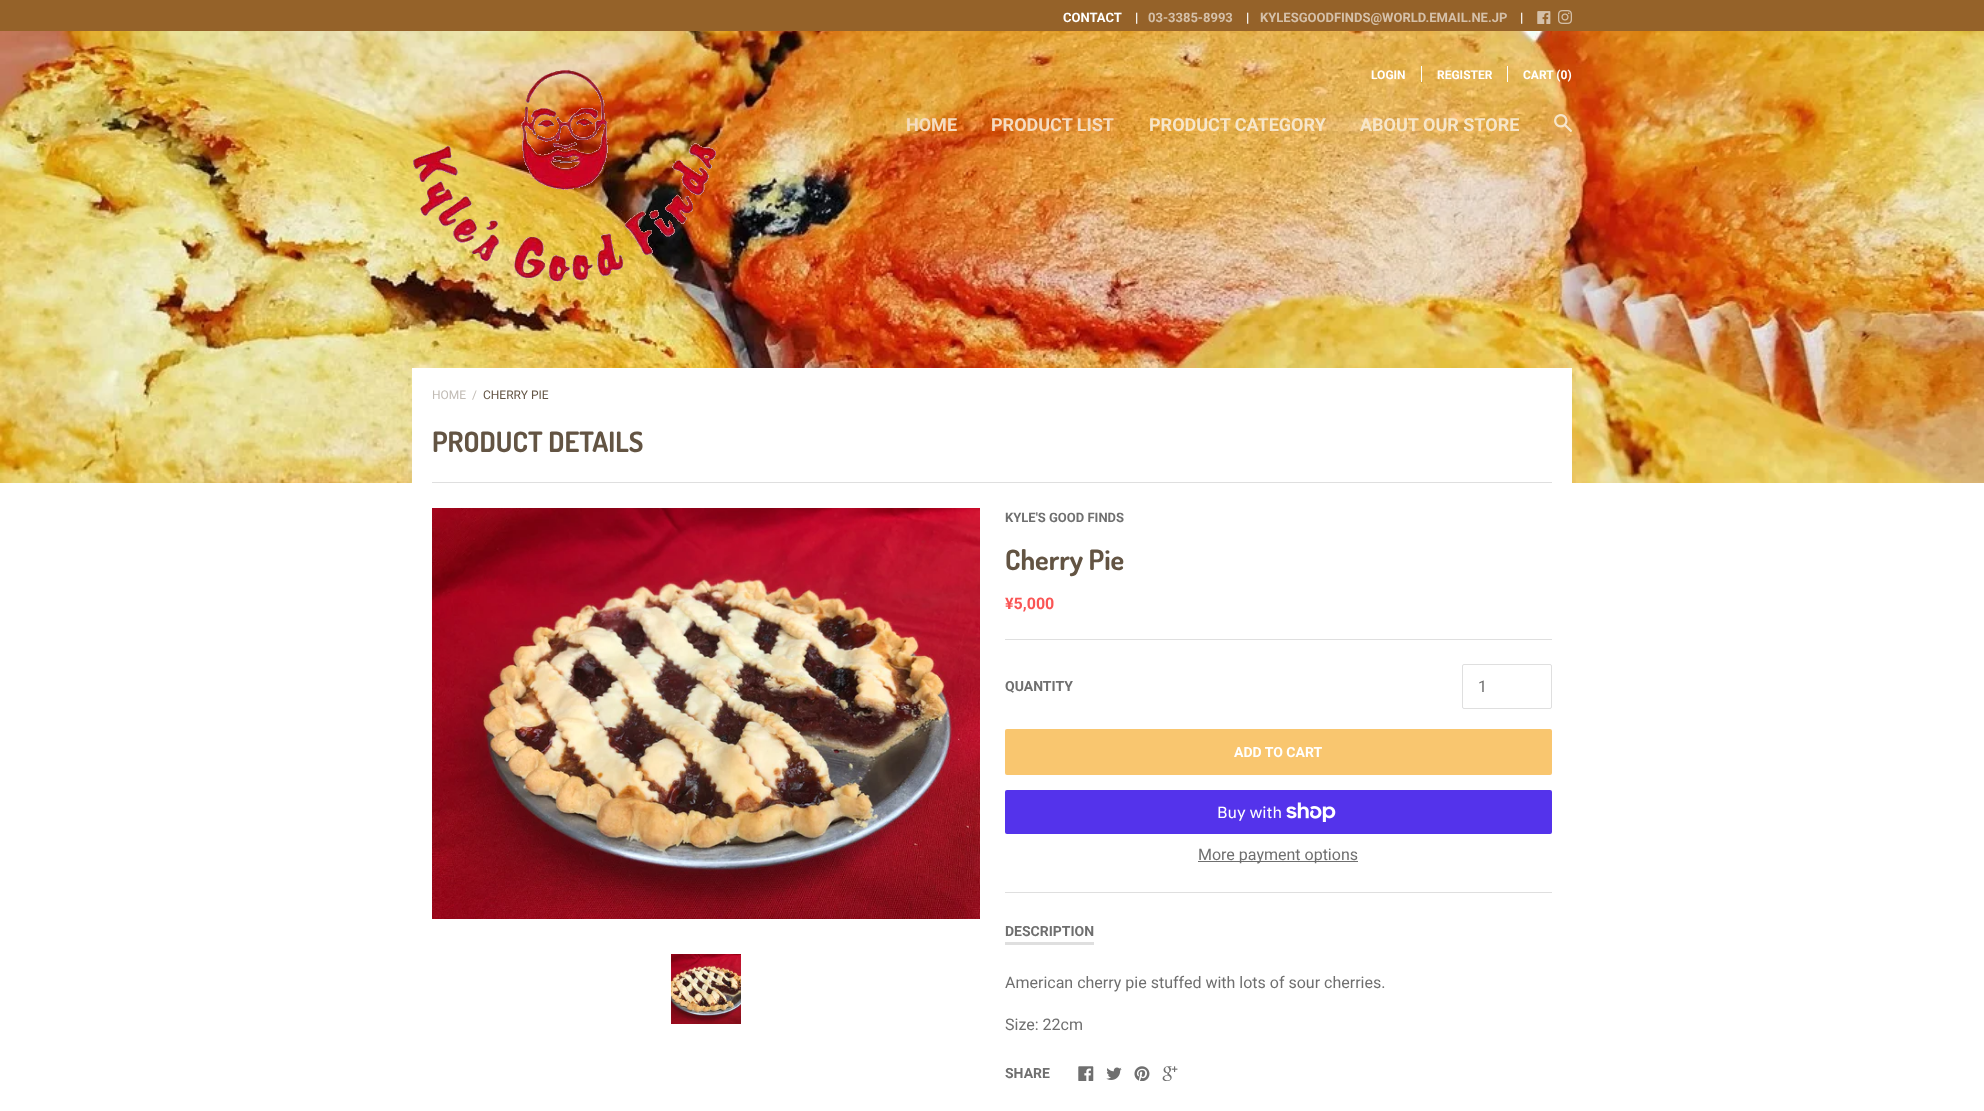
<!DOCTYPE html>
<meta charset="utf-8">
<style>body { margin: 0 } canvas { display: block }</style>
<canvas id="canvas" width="1984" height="1111"></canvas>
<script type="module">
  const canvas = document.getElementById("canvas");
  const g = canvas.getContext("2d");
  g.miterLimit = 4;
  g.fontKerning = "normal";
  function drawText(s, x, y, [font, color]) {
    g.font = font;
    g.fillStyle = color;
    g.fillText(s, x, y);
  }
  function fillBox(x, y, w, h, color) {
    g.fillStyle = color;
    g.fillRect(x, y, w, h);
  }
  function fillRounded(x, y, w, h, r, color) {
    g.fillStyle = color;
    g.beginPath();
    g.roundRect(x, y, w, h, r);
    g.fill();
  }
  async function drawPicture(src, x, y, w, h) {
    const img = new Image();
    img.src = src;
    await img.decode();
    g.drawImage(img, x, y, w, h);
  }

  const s1 = ["bold 13px Roboto", "#FFFFFF"];
  const s2 = ["bold 13px Roboto", "#D5C0A9"];
  const s3 = ["bold 12px Roboto", "#FFFFFF"];
  const s4 = ["bold 18px Roboto", "#F5DCC1"];
  const s5 = ["bold 18px Roboto", "#F7E6C9"];
  const s6 = ["12px Roboto", "#C1BBB4"];
  const s7 = ["12px Roboto", "#635443"];
  const s8 = ["bold 28px Dosis", "#635443"];
  const s9 = ["bold 13px Roboto", "#6F6F6F"];
  const s10 = ["bold 16px Roboto", "#FA5555"];
  const s11 = ["bold 14px Roboto", "#6F6F6F"];
  const s12 = ["16px Roboto", "#6F6F6F"];
  const s13 = ["bold 14px Roboto", "#FFFFFF"];
  const s14 = ["16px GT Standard", "#FFFFFF"];

  fillBox(0, 0, 1984, 1111, "#FFFFFF");
  await drawPicture("pic1.png", 0, 31, 1984, 452);
  fillBox(0, 0, 1984, 31, "#956229");
  drawText("CONTACT", 1063, 22, s1);
  drawText("|", 1135, 22, s1);
  drawText("03-3385-8993", 1148, 22, s2);
  drawText("|", 1246, 22, s1);
  drawText("KYLESGOODFINDS@WORLD.EMAIL.NE.JP", 1260, 22, s2);
  drawText("|", 1520, 22, s1);
  await drawPicture("pic2.png", 1537, 11, 14, 13);
  await drawPicture("pic3.png", 1558, 10, 14, 14);
  await drawPicture("pic4.png", 413, 69, 303, 213);
  drawText("LOGIN", 1371, 79, s3);
  fillBox(1421, 66, 1, 16, "#FFFFFF");
  drawText("REGISTER", 1437, 79, s3);
  fillBox(1507, 66, 1, 16, "#FFFFFF");
  drawText("CART (0)", 1523, 79, s3);
  drawText("HOME", 906, 131, s4);
  drawText("PRODUCT LIST", 991, 131, s4);
  drawText("PRODUCT CATEGORY", 1149, 131, s5);
  drawText("ABOUT OUR STORE", 1360, 131, s5);
  await drawPicture("pic5.png", 1554, 114, 18, 18);
  fillBox(412, 368, 1160, 115, "#FFFFFF");
  drawText("HOME", 432, 399, s6);
  drawText("/", 472, 399, s6);
  drawText("CHERRY PIE", 483, 399, s7);
  fillBox(432, 482, 1120, 1, "#DFDFDF");
  drawText("PRODUCT DETAILS", 432, 452, s8);
  await drawPicture("pic6.png", 432, 508, 548, 411);
  await drawPicture("pic7.png", 671, 954, 70, 70);
  fillBox(1005, 639, 547, 1, "#DFDFDF");
  drawText("KYLE'S GOOD FINDS", 1005, 522, s9);
  drawText("Cherry Pie", 1005, 570, s8);
  drawText("¥5,000", 1005, 609, s10);
  drawText("QUANTITY", 1005, 691, s11);
  g.beginPath();
  g.roundRect(1462.5, 664.5, 89, 44, 1.5);
  g.strokeStyle = "#DFDFDF";
  g.stroke();
  drawText("1", 1478, 692, s12);
  fillRounded(1005, 729, 547, 46, 2, "#F9C66F");
  drawText("ADD TO CART", 1234, 757, s13);
  fillRounded(1005, 790, 547, 44, 2, "#5433EB");
  drawText("Buy with", 1217, 818, s14);
  await drawPicture("pic8.png", 1286, 802, 50, 20);
  fillBox(1198, 861, 160, 1, "#6F6F6F");
  drawText("More payment options", 1198, 860, s12);
  fillBox(1005, 892, 547, 1, "#DFDFDF");
  fillBox(1005, 942, 89, 3, "#DFDFDF");
  drawText("DESCRIPTION", 1005, 936, s11);
  drawText("American cherry pie stuffed with lots of sour cherries.", 1005, 988, s12);
  drawText("Size: 22cm", 1005, 1030, s12);
  drawText("SHARE", 1005, 1078, s11);
  await drawPicture("pic9.png", 1078, 1066, 16, 15);
  await drawPicture("pic10.png", 1106, 1067, 16, 13);
  await drawPicture("pic11.png", 1134, 1066, 16, 15);
  await drawPicture("pic12.png", 1162, 1066, 16, 15);
</script>
